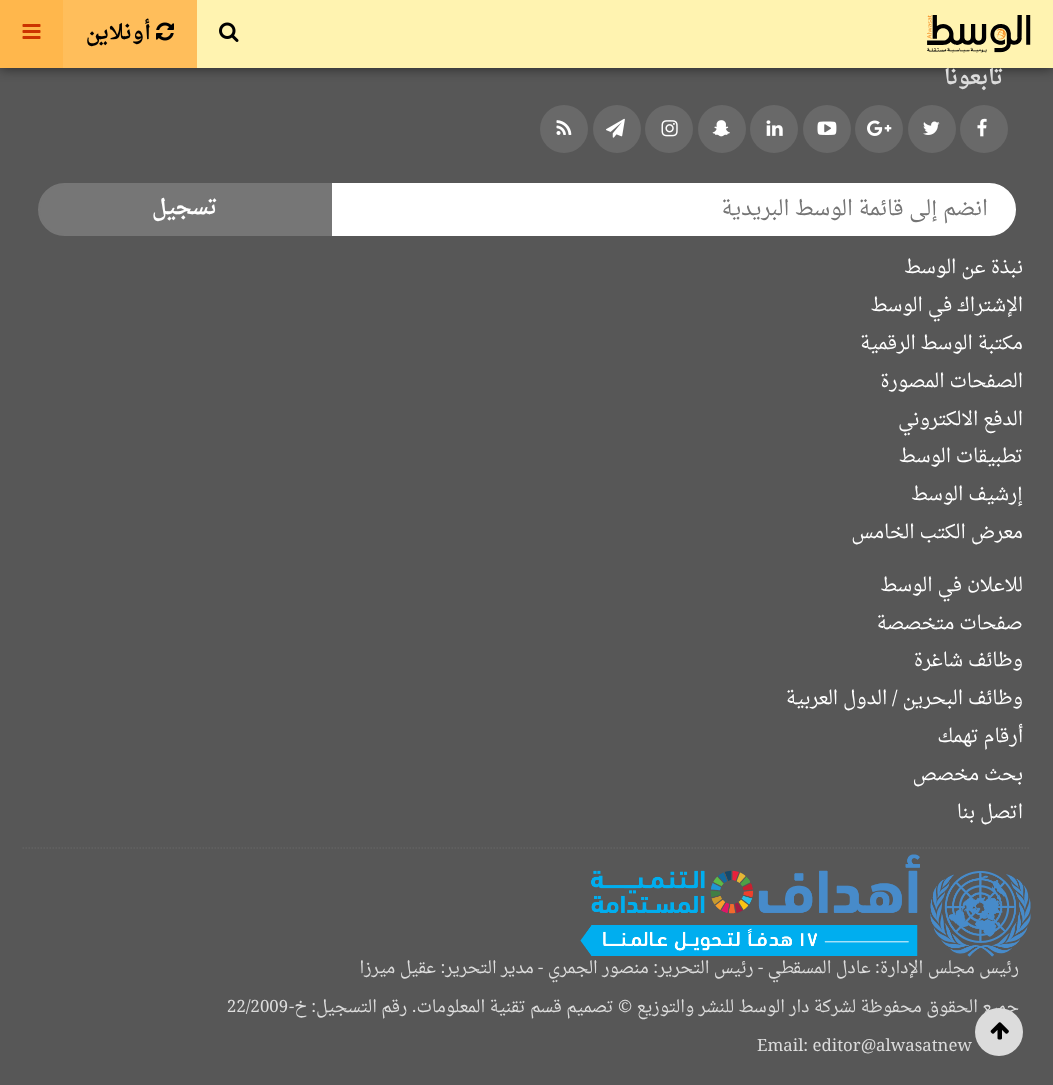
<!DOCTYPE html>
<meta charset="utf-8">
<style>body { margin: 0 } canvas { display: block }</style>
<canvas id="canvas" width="1053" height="1085"></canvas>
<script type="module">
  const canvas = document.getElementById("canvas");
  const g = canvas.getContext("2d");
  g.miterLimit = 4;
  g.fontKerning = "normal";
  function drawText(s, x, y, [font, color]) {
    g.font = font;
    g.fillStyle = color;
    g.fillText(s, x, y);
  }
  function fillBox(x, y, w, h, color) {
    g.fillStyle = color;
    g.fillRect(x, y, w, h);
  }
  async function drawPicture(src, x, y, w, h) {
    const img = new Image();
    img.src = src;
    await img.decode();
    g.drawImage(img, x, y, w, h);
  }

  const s1 = ["bold 21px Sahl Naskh", "#DCDCDC"];
  const s2 = ["bold 21px Sahl Naskh", "#000000"];
  const s3 = ["21px Sahl Naskh", "#757575"];
  const s4 = ["bold 21px Sahl Naskh", "#FFFFFF"];
  const s5 = ["18.9px Sahl Naskh", "#FFFFFF"];
  const s6 = ["16.8px Sahl Naskh", "#DCDCDC"];

  fillBox(0, 0, 1053, 1085, "#575757");
  g.fillStyle = "rgba(0, 0, 0, 0.5)";
  g.filter = "blur(6px)";
  g.beginPath();
  g.rect(0, 2, 1053, 67);
  g.fill();
  g.filter = "none";
  g.direction = "rtl";
  drawText("تابعونا", 1003, 84, s1);
  fillBox(197, 0, 856, 68, "#FFF3B0");
  await drawPicture("pic1.png", 927, 15, 104, 38);
  await drawPicture("pic2.png", 219, 22, 20, 20);
  fillBox(63, 0, 134, 68, "#FFBE5B");
  await drawPicture("pic3.png", 156, 22, 18, 19);
  drawText("أونلاين", 151, 39, s2);
  fillBox(0, 0, 63, 68, "#FFB74C");
  await drawPicture("pic4.png", 22, 24, 19, 15);
  g.fillStyle = "#696969";
  g.beginPath();
  g.arc(984, 129, 24, 0, Math.PI * 2);
  g.fill();
  await drawPicture("pic5.png", 977, 118, 10, 19);
  g.beginPath();
  g.arc(932, 129, 24, 0, Math.PI * 2);
  g.fill();
  await drawPicture("pic6.png", 923, 121, 17, 14);
  g.beginPath();
  g.arc(879, 129, 24, 0, Math.PI * 2);
  g.fill();
  await drawPicture("pic7.png", 867, 120, 25, 16);
  g.beginPath();
  g.arc(827, 129, 24, 0, Math.PI * 2);
  g.fill();
  await drawPicture("pic8.png", 817, 121, 20, 14);
  g.beginPath();
  g.arc(774, 129, 24, 0, Math.PI * 2);
  g.fill();
  await drawPicture("pic9.png", 766, 120, 17, 16);
  g.beginPath();
  g.arc(722, 129, 24, 0, Math.PI * 2);
  g.fill();
  await drawPicture("pic10.png", 712, 120, 18, 17);
  g.beginPath();
  g.arc(669, 129, 24, 0, Math.PI * 2);
  g.fill();
  await drawPicture("pic11.png", 661, 120, 17, 17);
  g.beginPath();
  g.arc(617, 129, 24, 0, Math.PI * 2);
  g.fill();
  await drawPicture("pic12.png", 606, 118, 19, 20);
  g.beginPath();
  g.arc(564, 129, 24, 0, Math.PI * 2);
  g.fill();
  await drawPicture("pic13.png", 556, 120, 16, 15);
  g.fillStyle = "#FFFFFF";
  g.beginPath();
  g.roundRect(333, 184, 682, 51, [0, 25.5, 25.5, 0]);
  g.fill();
  g.strokeStyle = "#FFFFFF";
  g.lineWidth = 2;
  g.stroke();
  drawText("انضم إلى قائمة الوسط البريدية", 988, 215, s3);
  g.fillStyle = "#767676";
  g.beginPath();
  g.roundRect(39, 184, 292, 51, [25.5, 0, 0, 25.5]);
  g.fill();
  g.strokeStyle = "#767676";
  g.stroke();
  drawText("تسجيل", 217, 214, s4);
  drawText("نبذة عن الوسط", 1023, 273, s5);
  drawText("الإشتراك في الوسط", 1023, 311, s5);
  drawText("مكتبة الوسط الرقمية", 1023, 349, s5);
  drawText("الصفحات المصورة", 1023, 387, s5);
  drawText("الدفع الالكتروني", 1023, 425, s5);
  drawText("تطبيقات الوسط", 1023, 462, s5);
  drawText("إرشيف الوسط", 1023, 500, s5);
  drawText("معرض الكتب الخامس", 1023, 538, s5);
  drawText("للاعلان في الوسط", 1023, 591, s5);
  drawText("صفحات متخصصة", 1023, 629, s5);
  drawText("وظائف شاغرة", 1023, 666, s5);
  drawText("وظائف البحرين / الدول العربية", 1023, 704, s5);
  drawText("أرقام تهمك", 1023, 742, s5);
  drawText("بحث مخصص", 1023, 780, s5);
  drawText("اتصل بنا", 1023, 818, s5);
  await drawPicture("pic14.png", 580, 854, 451, 103);
  g.beginPath();
  g.moveTo(22.5, 848);
  g.lineTo(1030.5, 848);
  g.strokeStyle = "#636363";
  g.lineWidth = 1.5;
  g.setLineDash([1.5, 1.5]);
  g.stroke();
  drawText("رئيس مجلس الإدارة: عادل المسقطي - رئيس التحرير: منصور الجمري - مدير التحرير: عقيل ميرزا", 1019, 973, s6);
  drawText("جميع الحقوق محفوظة لشركة دار الوسط للنشر والتوزيع © تصميم قسم تقنية المعلومات. رقم التسجيل: خ-", 1019, 1012, s6);
  g.direction = "ltr";
  drawText("22/2009", 227, 1012, s6);
  drawText("Email: editor@alwasatnew", 757, 1051, s6);
  g.beginPath();
  g.arc(999, 1032, 24, 0, Math.PI * 2);
  g.fill();
  await drawPicture("pic15.png", 990, 1022, 19, 18);
</script>
